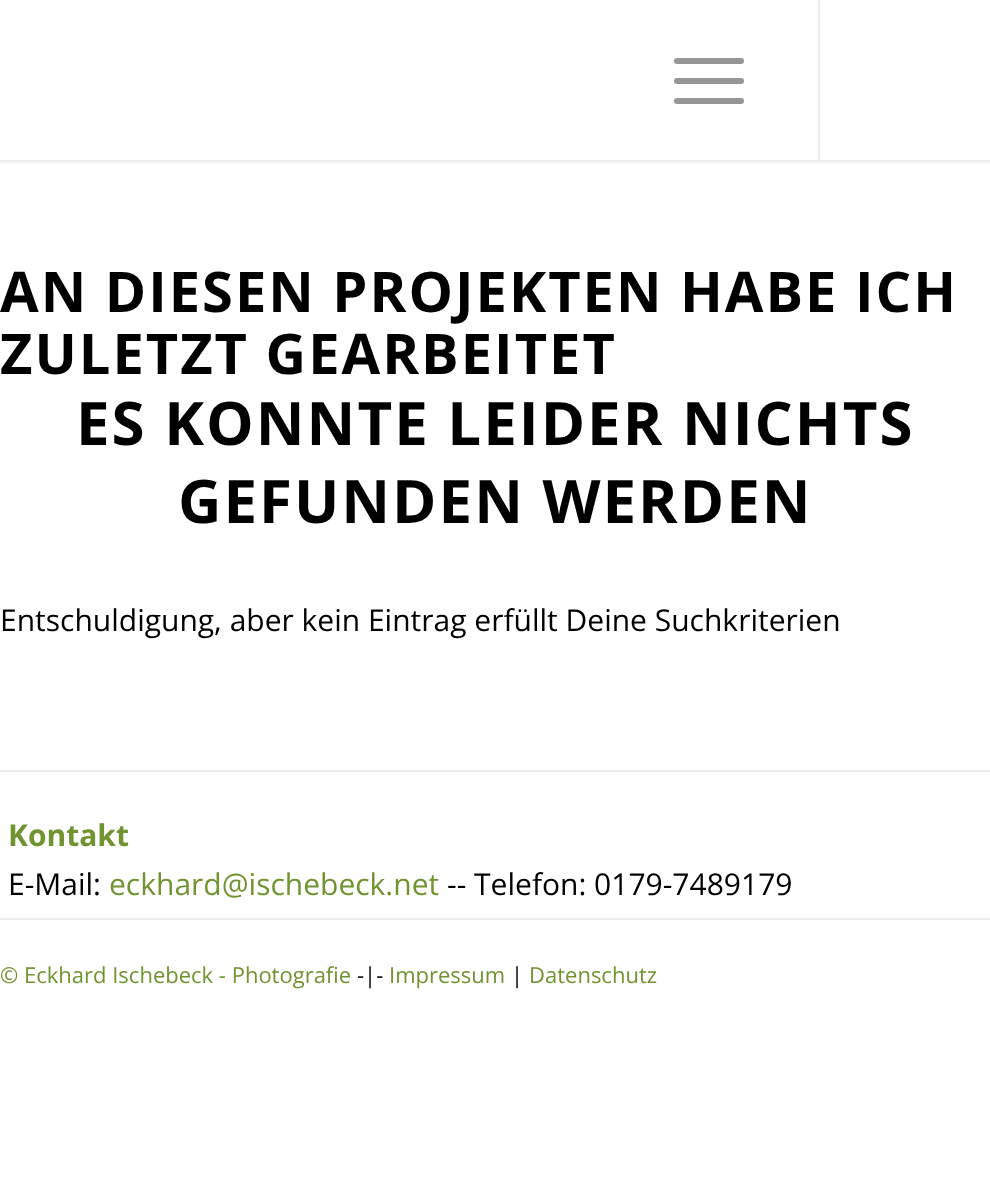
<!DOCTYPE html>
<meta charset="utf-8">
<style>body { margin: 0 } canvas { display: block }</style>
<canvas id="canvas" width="990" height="1203"></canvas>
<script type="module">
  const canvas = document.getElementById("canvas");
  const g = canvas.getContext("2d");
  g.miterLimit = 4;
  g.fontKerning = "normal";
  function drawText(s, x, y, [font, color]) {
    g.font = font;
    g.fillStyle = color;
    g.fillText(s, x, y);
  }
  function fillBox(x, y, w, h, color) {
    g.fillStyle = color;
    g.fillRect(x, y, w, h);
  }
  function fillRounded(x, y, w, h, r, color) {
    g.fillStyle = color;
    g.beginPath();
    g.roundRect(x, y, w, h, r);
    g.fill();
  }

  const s1 = ["bold 56px Open Sans", "#000000"];
  const s2 = ["bold 60px Open Sans", "#000000"];
  const s3 = ["30px Open Sans", "#000000"];
  const s4 = ["bold 30px Open Sans", "#719430"];
  const s5 = ["30px Open Sans", "#719430"];
  const s6 = ["22px Open Sans", "#719430"];
  const s7 = ["22px Open Sans", "#000000"];

  fillBox(0, 0, 990, 1203, "#FFFFFF");
  g.save();
  g.beginPath();
  g.rect(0, 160, 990, 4);
  g.clip();
  g.fillStyle = "rgba(0, 0, 0, 0.1)";
  g.filter = "blur(2px)";
  g.beginPath();
  g.rect(-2, -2, 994, 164);
  g.fill();
  g.filter = "none";
  g.restore();
  fillBox(818, 0, 2, 160, "#EBEBEB");
  fillRounded(674, 78, 70, 6, 3, "#969696");
  fillRounded(674, 58, 70, 6, 3, "#969696");
  fillRounded(674, 98, 70, 6, 3, "#969696");
  g.letterSpacing = "2px";
  drawText("AN DIESEN PROJEKTEN HABE ICH", 0, 312, s1);
  drawText("ZULETZT GEARBEITET", 0, 374, s1);
  drawText("ES KONNTE LEIDER NICHTS", 76, 445, s2);
  drawText("GEFUNDEN WERDEN", 178, 523, s2);
  g.letterSpacing = "0px";
  drawText("Entschuldigung, aber kein Eintrag erfüllt Deine Suchkriterien", 0, 631, s3);
  fillBox(0, 770, 990, 2, "#EBEBEB");
  drawText("Kontakt", 8, 846, s4);
  drawText("E-Mail:", 8, 895, s3);
  drawText("eckhard@ischebeck.net", 109, 895, s5);
  drawText("-- Telefon: 0179-7489179", 447, 895, s3);
  fillBox(0, 918, 990, 2, "#EBEBEB");
  drawText("© Eckhard Ischebeck - Photografie", 0, 983, s6);
  drawText("-|-", 357, 983, s7);
  drawText("Impressum", 389, 983, s6);
  drawText("|", 511, 983, s7);
  drawText("Datenschutz", 529, 983, s6);
</script>
